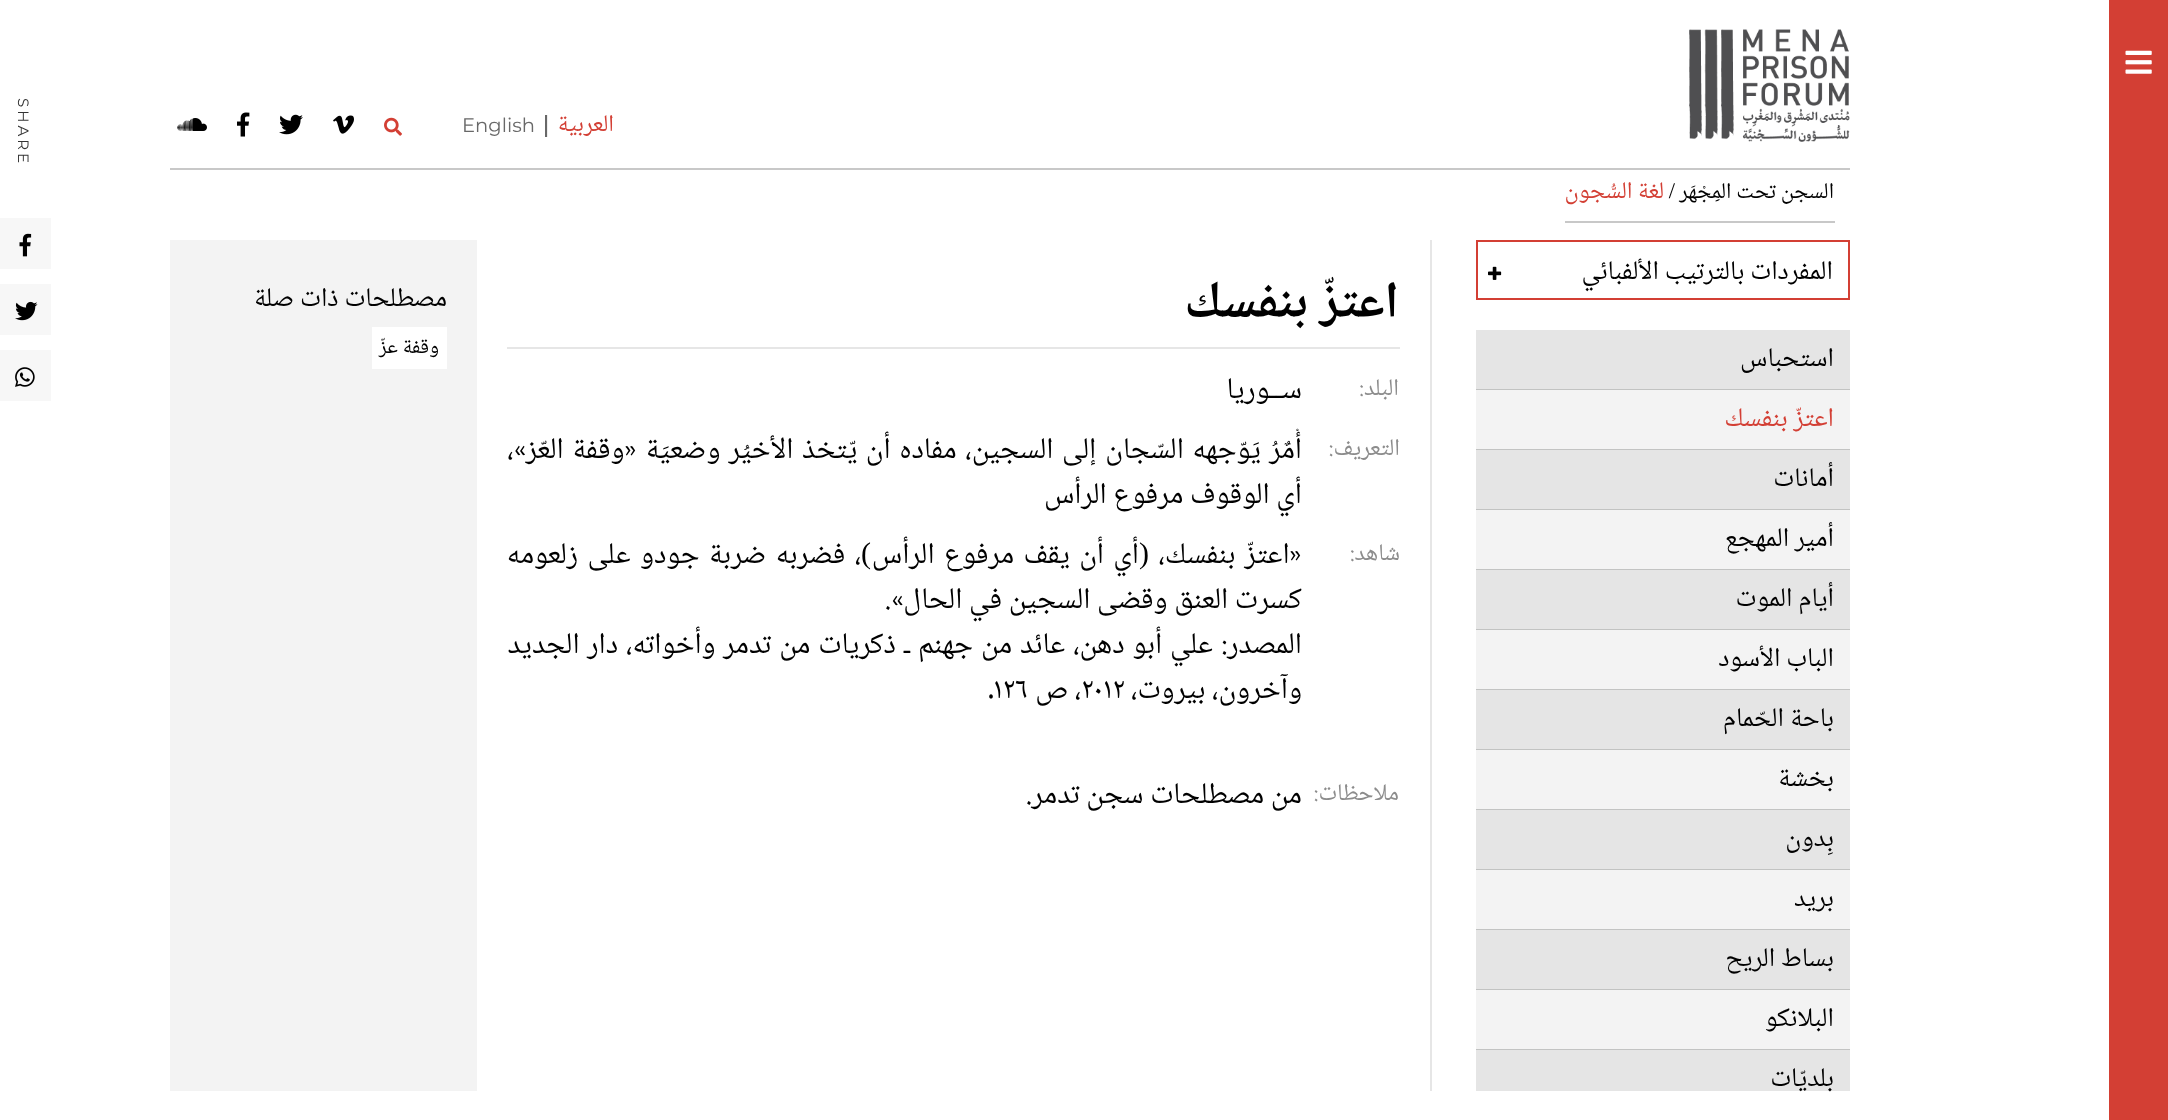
<!DOCTYPE html>
<meta charset="utf-8">
<style>body { margin: 0 } canvas { display: block }</style>
<canvas id="canvas" width="2168" height="1120"></canvas>
<script type="module">
  const canvas = document.getElementById("canvas");
  const g = canvas.getContext("2d");
  g.miterLimit = 4;
  g.fontKerning = "normal";
  function drawText(s, x, y, [font, color]) {
    g.font = font;
    g.fillStyle = color;
    g.fillText(s, x, y);
  }
  function fillBox(x, y, w, h, color) {
    g.fillStyle = color;
    g.fillRect(x, y, w, h);
  }
  async function drawPicture(src, x, y, w, h) {
    const img = new Image();
    img.src = src;
    await img.decode();
    g.drawImage(img, x, y, w, h);
  }

  const s1 = ["24px Noto Naskh Arabic", "#D33F34"];
  const s2 = ["19.5px Montserrat", "#686868"];
  const s3 = ["22.5px Noto Naskh Arabic", "#000000"];
  const s4 = ["22.5px Liberation Serif", "#000000"];
  const s5 = ["27px Noto Naskh Arabic", "#000000"];
  const s6 = ["27px Noto Naskh Arabic", "#D33F34"];
  const s7 = ["bold 51px Noto Naskh Arabic", "#000000"];
  const s8 = ["24px Noto Naskh Arabic", "#8C8C8C"];
  const s9 = ["30px Noto Naskh Arabic", "#000000"];
  const s10 = ["30px Liberation Serif", "#000000"];
  const s11 = ["21px Noto Naskh Arabic", "#000000"];

  fillBox(0, 0, 2168, 1120, "#FFFFFF");
  fillBox(2109, 0, 59, 1120, "#D33F34");
  await drawPicture("pic1.png", 2125, 50, 27, 24);
  await drawPicture("pic2.png", 1689, 29, 161, 113);
  fillBox(170, 168, 1680, 2, "#C8C8C8");
  g.direction = "rtl";
  drawText("العربية", 614, 131, s1);
  fillBox(547, 115, 1, 22, "#EEEEEE");
  fillBox(545, 115, 2, 22, "#686868");
  g.direction = "ltr";
  drawText("English", 462, 132, s2);
  await drawPicture("pic3.png", 384, 117, 18, 19);
  await drawPicture("pic4.png", 333, 115, 21, 19);
  await drawPicture("pic5.png", 279, 114, 24, 21);
  await drawPicture("pic6.png", 237, 112, 13, 25);
  await drawPicture("pic7.png", 177, 118, 30, 13);
  g.letterSpacing = "3px";
  g.font = "15px Montserrat";
  g.fillStyle = "#333333";
  g.save();
  g.translate(18, 98);
  g.rotate(90 * Math.PI / 180);
  g.fillText("SHARE", 0, 0);
  g.restore();
  fillBox(0, 218, 51, 51, "#F7F7F7");
  await drawPicture("pic8.png", 19, 233, 13, 24);
  fillBox(0, 284, 51, 51, "#F7F7F7");
  await drawPicture("pic9.png", 15, 301, 23, 20);
  fillBox(0, 350, 51, 51, "#F7F7F7");
  await drawPicture("pic10.png", 15, 367, 20, 20);
  g.letterSpacing = "0px";
  g.direction = "rtl";
  drawText("السجن تحت المِجْهَر", 1834, 198, s3);
  fillBox(1565, 221, 270, 2, "#C8C8C8");
  drawText("/", 1675, 198, s4);
  drawText("لغة السُّجون", 1664, 198, s1);
  fillBox(1430, 240, 2, 851, "#E6E6E6");
  g.strokeStyle = "#D33F34";
  g.lineWidth = 2;
  g.strokeRect(1477, 241, 372, 58);
  drawText("المفردات بالترتيب الألفبائي", 1833, 279, s5);
  await drawPicture("pic11.png", 1488, 266, 14, 14);
  fillBox(1476, 330, 374, 59, "#E5E5E5");
  fillBox(1476, 389, 374, 1, "#C2C3C2");
  drawText("استحباس", 1834, 366, s5);
  fillBox(1476, 390, 374, 59, "#F3F3F3");
  fillBox(1476, 449, 374, 1, "#C2C3C2");
  drawText("اعتزّ بنفسك", 1834, 426, s6);
  fillBox(1476, 450, 374, 59, "#E5E5E5");
  fillBox(1476, 509, 374, 1, "#C2C3C2");
  drawText("أمانات", 1834, 486, s5);
  fillBox(1476, 510, 374, 59, "#F3F3F3");
  fillBox(1476, 569, 374, 1, "#C2C3C2");
  drawText("أمير المهجع", 1834, 546, s5);
  fillBox(1476, 570, 374, 59, "#E5E5E5");
  fillBox(1476, 629, 374, 1, "#C2C3C2");
  drawText("أيام الموت", 1834, 606, s5);
  fillBox(1476, 630, 374, 59, "#F3F3F3");
  fillBox(1476, 689, 374, 1, "#C2C3C2");
  drawText("الباب الأسود", 1834, 666, s5);
  fillBox(1476, 690, 374, 59, "#E5E5E5");
  fillBox(1476, 749, 374, 1, "#C2C3C2");
  drawText("باحة الحّمام", 1834, 726, s5);
  fillBox(1476, 750, 374, 59, "#F3F3F3");
  fillBox(1476, 809, 374, 1, "#C2C3C2");
  drawText("بخشة", 1834, 786, s5);
  fillBox(1476, 810, 374, 59, "#E5E5E5");
  fillBox(1476, 869, 374, 1, "#C2C3C2");
  drawText("بِدون", 1834, 846, s5);
  fillBox(1476, 870, 374, 59, "#F3F3F3");
  fillBox(1476, 929, 374, 1, "#C2C3C2");
  drawText("بريد", 1834, 906, s5);
  fillBox(1476, 930, 374, 59, "#E5E5E5");
  fillBox(1476, 989, 374, 1, "#C2C3C2");
  drawText("بساط الريح", 1834, 966, s5);
  fillBox(1476, 990, 374, 59, "#F3F3F3");
  fillBox(1476, 1049, 374, 1, "#C2C3C2");
  drawText("البلانكو", 1834, 1026, s5);
  fillBox(1476, 1050, 374, 41, "#E5E5E5");
  drawText("بلديّات", 1834, 1086, s5);
  drawText("اعتزّ بنفسك", 1399, 317, s7);
  fillBox(507, 347, 893, 2, "#E6E6E6");
  drawText("البلد:", 1399, 395, s8);
  drawText("ســوريا", 1302, 398, s9);
  drawText("التعريف:", 1400, 455, s8);
  g.wordSpacing = "2px";
  drawText("أْمٌرُ يَوّجهه السّجان إلى السجين، مفاده أن يّتخذ الأخيُر وضعيَة «وقفة العّز»،", 1302, 458, s9);
  g.wordSpacing = "0px";
  drawText("أي الوقوف مرفوع الرأس", 1302, 503, s9);
  drawText("شاهد:", 1400, 560, s8);
  g.wordSpacing = "2.75px";
  drawText("«اعتزّ بنفسك،", 1302, 563, s9);
  g.wordSpacing = "0px";
  drawText("(", 1149, 563, s10);
  g.wordSpacing = "2.75px";
  drawText("أي أن يقف مرفوع الرأس", 1139, 563, s9);
  g.wordSpacing = "0px";
  drawText(")", 871, 563, s10);
  g.wordSpacing = "2.75px";
  drawText("، فضربه ضربة جودو على زلعومه", 861, 563, s9);
  g.wordSpacing = "0px";
  drawText("كسرت العنق وقضى السجين في الحال».", 1302, 608, s9);
  drawText("المصدر:", 1302, 653, s9);
  g.wordSpacing = "1.25px";
  drawText("علي أبو دهن، عائد من جهنم ـ ذكريات من تدمر وأخواته، دار الجديد", 1213, 653, s9);
  g.wordSpacing = "0px";
  drawText("وآخرون، بيروت،", 1302, 698, s9);
  g.direction = "ltr";
  drawText("٢٠١٢", 1081, 698, s9);
  g.direction = "rtl";
  drawText("، ص", 1081, 698, s9);
  g.direction = "ltr";
  drawText("١٢٦", 993, 698, s9);
  drawText(".", 987, 698, s9);
  g.direction = "rtl";
  drawText("ملاحظات:", 1399, 800, s8);
  drawText("من مصطلحات سجن تدمر.", 1302, 803, s9);
  fillBox(170, 240, 307, 851, "#F3F3F3");
  drawText("مصطلحات ذات صلة", 447, 306, s5);
  fillBox(372, 327, 75, 42, "#FFFFFF");
  drawText("وقفة عزّ", 439, 353, s11);
</script>
